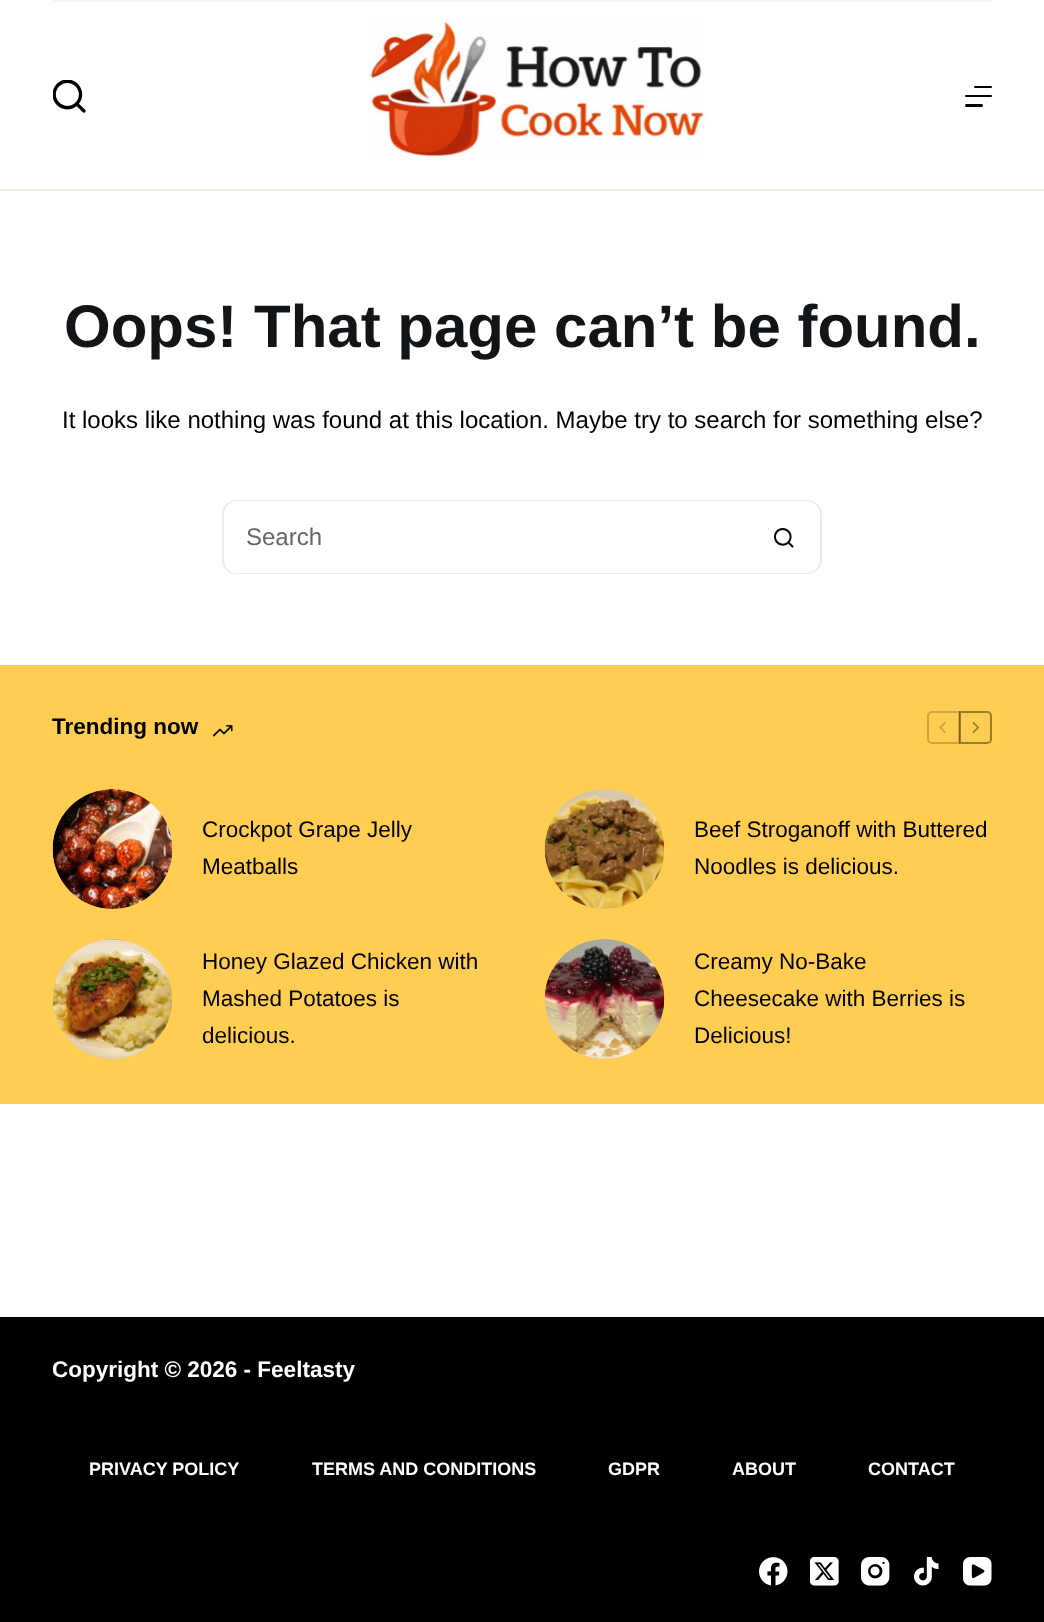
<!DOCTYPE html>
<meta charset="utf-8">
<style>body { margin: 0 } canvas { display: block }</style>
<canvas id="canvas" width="1044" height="1622"></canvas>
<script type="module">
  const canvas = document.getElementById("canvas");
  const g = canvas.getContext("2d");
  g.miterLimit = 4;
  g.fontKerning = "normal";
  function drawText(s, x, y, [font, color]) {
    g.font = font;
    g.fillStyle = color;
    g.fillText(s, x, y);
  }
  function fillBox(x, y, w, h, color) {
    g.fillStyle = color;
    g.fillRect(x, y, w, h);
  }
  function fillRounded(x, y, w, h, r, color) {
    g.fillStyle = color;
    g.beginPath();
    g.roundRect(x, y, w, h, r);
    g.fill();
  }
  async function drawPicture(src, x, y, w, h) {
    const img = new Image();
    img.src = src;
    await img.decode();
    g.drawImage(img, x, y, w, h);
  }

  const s1 = ["bold 60px Liberation Sans", "#111518"];
  const s2 = ["24px Liberation Sans", "#000000"];
  const s3 = ["24px Liberation Sans", "#666666"];
  const s4 = ["bold 22.5px Liberation Sans", "#000000"];
  const s5 = ["22.5px Liberation Sans", "#000000"];
  const s6 = ["bold 22.5px Liberation Sans", "#FFFFFF"];
  const s7 = ["bold 18px Liberation Sans", "#FFFFFF"];

  fillBox(0, 0, 1044, 1622, "#FFFFFF");
  fillBox(0, 189, 1044, 2, "#FFE8DB");
  fillBox(53, 0, 939, 2, "#F4F5F6");
  await drawPicture("pic1.png", 53, 80, 33, 33);
  await drawPicture("pic2.png", 369, 18, 338, 143);
  fillRounded(974, 86, 18, 2, 1, "#000000");
  fillRounded(965, 95, 27, 2, 1, "#000000");
  fillRounded(965, 104, 18, 3, 1.5, "#000000");
  drawText("Oops! That page can’t be found.", 64, 347, s1);
  drawText("It looks like nothing was found at this location. Maybe try to search for something else?", 62, 428, s2);
  g.fillStyle = "#E9EBEC";
  g.beginPath();
  g.moveTo(237, 500);
  g.lineTo(747, 500);
  g.lineTo(747, 574);
  g.lineTo(237, 574);
  g.bezierCurveTo(229, 574, 222, 568, 222, 560);
  g.lineTo(222, 514);
  g.bezierCurveTo(222, 506, 229, 500, 237, 500);
  g.closePath();
  g.moveTo(237, 501);
  g.lineTo(747, 501);
  g.lineTo(747, 573);
  g.lineTo(237, 573);
  g.bezierCurveTo(230, 573, 224, 567, 224, 560);
  g.lineTo(224, 514);
  g.bezierCurveTo(224, 507, 230, 501, 237, 501);
  g.closePath();
  g.fill("evenodd");
  drawText("Search", 246, 545, s3);
  g.fillStyle = "#E9EBEC";
  g.beginPath();
  g.moveTo(747, 500);
  g.lineTo(807, 500);
  g.bezierCurveTo(815, 500, 822, 506, 822, 514);
  g.lineTo(822, 560);
  g.bezierCurveTo(822, 568, 815, 574, 807, 574);
  g.lineTo(747, 574);
  g.closePath();
  g.moveTo(747, 501);
  g.lineTo(807, 501);
  g.bezierCurveTo(814, 501, 820, 507, 820, 514);
  g.lineTo(820, 560);
  g.bezierCurveTo(820, 567, 814, 573, 807, 573);
  g.lineTo(747, 573);
  g.closePath();
  g.fill("evenodd");
  await drawPicture("pic3.png", 774, 528, 20, 20);
  fillBox(0, 665, 1044, 439, "#FFCD52");
  drawText("Trending now", 52, 734, s4);
  await drawPicture("pic4.png", 213, 725, 20, 12);
  g.beginPath();
  g.roundRect(928, 712, 31, 31, [4, 0, 0, 4]);
  g.strokeStyle = "#CCA442";
  g.lineWidth = 2;
  g.stroke();
  await drawPicture("pic5.png", 939, 722, 7, 11);
  g.beginPath();
  g.roundRect(960, 712, 31, 31, [0, 4, 4, 0]);
  g.strokeStyle = "rgba(0, 0, 0, 0.4)";
  g.stroke();
  await drawPicture("pic6.png", 972, 722, 8, 12);
  await drawPicture("pic7.png", 52, 789, 121, 120);
  drawText("Crockpot Grape Jelly", 202, 837, s5);
  drawText("Meatballs", 202, 874, s5);
  await drawPicture("pic8.png", 544, 789, 121, 120);
  drawText("Beef Stroganoff with Buttered", 694, 837, s5);
  drawText("Noodles is delicious.", 694, 874, s5);
  await drawPicture("pic9.png", 52, 939, 121, 120);
  drawText("Honey Glazed Chicken with", 202, 969, s5);
  drawText("Mashed Potatoes is", 202, 1006, s5);
  drawText("delicious.", 202, 1043, s5);
  await drawPicture("pic10.png", 544, 939, 121, 120);
  drawText("Creamy No-Bake", 694, 969, s5);
  drawText("Cheesecake with Berries is", 694, 1006, s5);
  drawText("Delicious!", 694, 1043, s5);
  fillBox(0, 1317, 1044, 305, "#000000");
  drawText("Copyright © 2026 - Feeltasty", 52, 1377, s6);
  drawText("PRIVACY POLICY", 89, 1475, s7);
  drawText("TERMS AND CONDITIONS", 312, 1475, s7);
  drawText("GDPR", 608, 1475, s7);
  drawText("ABOUT", 732, 1475, s7);
  drawText("CONTACT", 868, 1475, s7);
  await drawPicture("pic11.png", 759, 1557, 29, 29);
  await drawPicture("pic12.png", 810, 1557, 29, 29);
  await drawPicture("pic13.png", 861, 1557, 29, 29);
  await drawPicture("pic14.png", 914, 1557, 25, 29);
  await drawPicture("pic15.png", 963, 1557, 29, 29);
</script>
